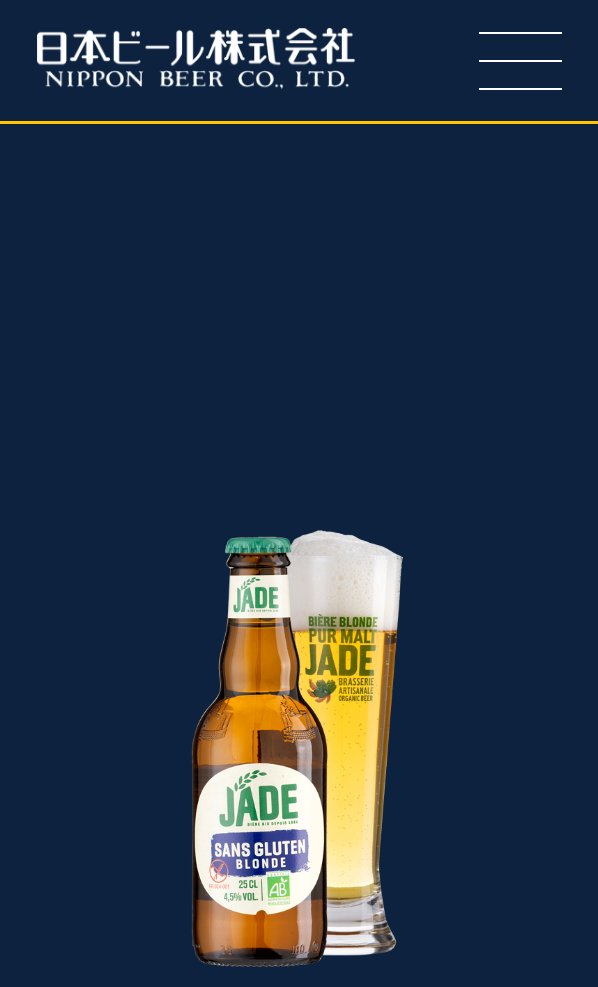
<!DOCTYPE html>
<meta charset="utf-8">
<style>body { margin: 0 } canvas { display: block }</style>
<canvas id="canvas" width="598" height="987"></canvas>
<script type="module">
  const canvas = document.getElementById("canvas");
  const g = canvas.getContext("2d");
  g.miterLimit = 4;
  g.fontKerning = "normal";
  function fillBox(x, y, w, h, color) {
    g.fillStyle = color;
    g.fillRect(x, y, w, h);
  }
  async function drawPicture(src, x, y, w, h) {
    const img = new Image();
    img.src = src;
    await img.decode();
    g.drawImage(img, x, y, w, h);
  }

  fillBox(0, 0, 598, 987, "#0C223F");
  fillBox(0, 121, 598, 3, "#FFC400");
  await drawPicture("pic1.png", 37, 28, 318, 61);
  fillBox(479, 32, 83, 2, "#FFFFFF");
  fillBox(479, 60, 83, 2, "#FFFFFF");
  fillBox(479, 88, 83, 2, "#FFFFFF");
  await drawPicture("pic2.png", 191, 530, 212, 438);
</script>
